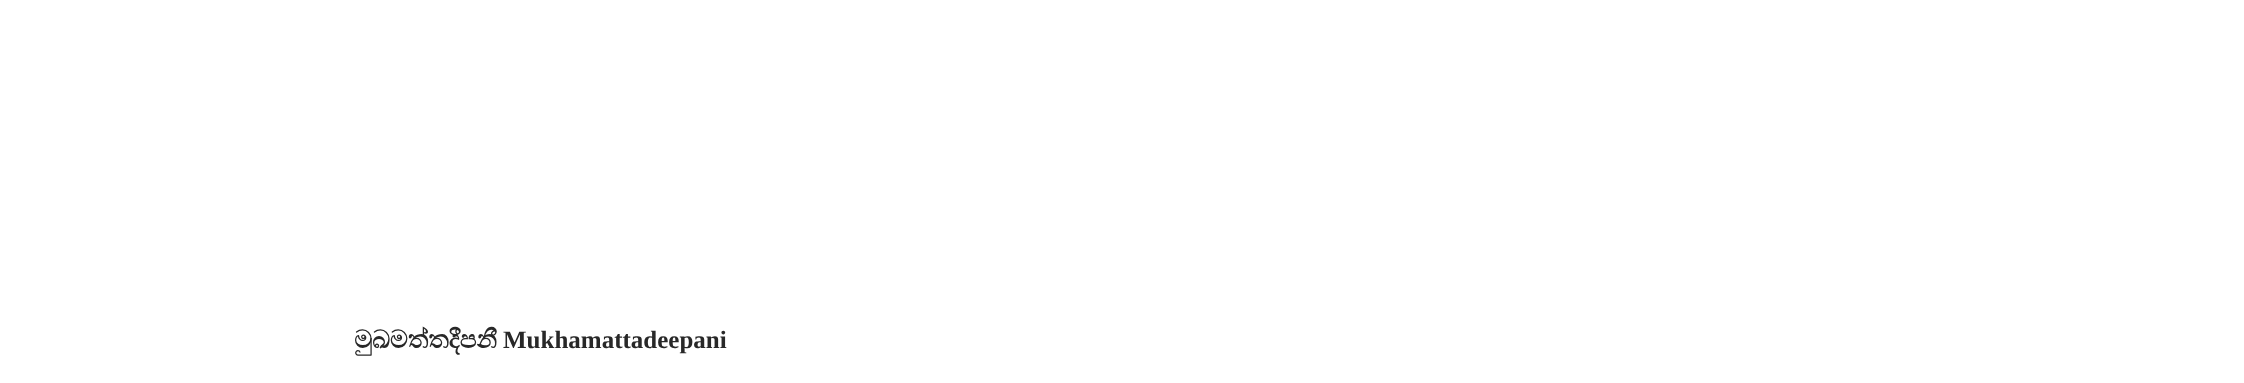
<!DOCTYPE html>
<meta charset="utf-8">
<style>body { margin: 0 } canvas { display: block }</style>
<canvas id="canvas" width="2244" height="383"></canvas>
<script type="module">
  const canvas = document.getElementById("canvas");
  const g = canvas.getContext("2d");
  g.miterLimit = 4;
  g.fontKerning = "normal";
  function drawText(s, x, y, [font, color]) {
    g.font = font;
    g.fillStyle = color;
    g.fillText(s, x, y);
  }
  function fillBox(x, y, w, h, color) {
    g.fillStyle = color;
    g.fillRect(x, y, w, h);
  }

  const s1 = ["bold 25px FreeSerif", "#282828"];
  const s2 = ["bold 25px Liberation Serif", "#282828"];

  fillBox(0, 0, 2244, 383, "#FFFFFF");
  drawText("මුඛමත්තදීපනී", 354, 348, s1);
  drawText("Mukhamattadeepani", 503, 348, s2);
</script>
